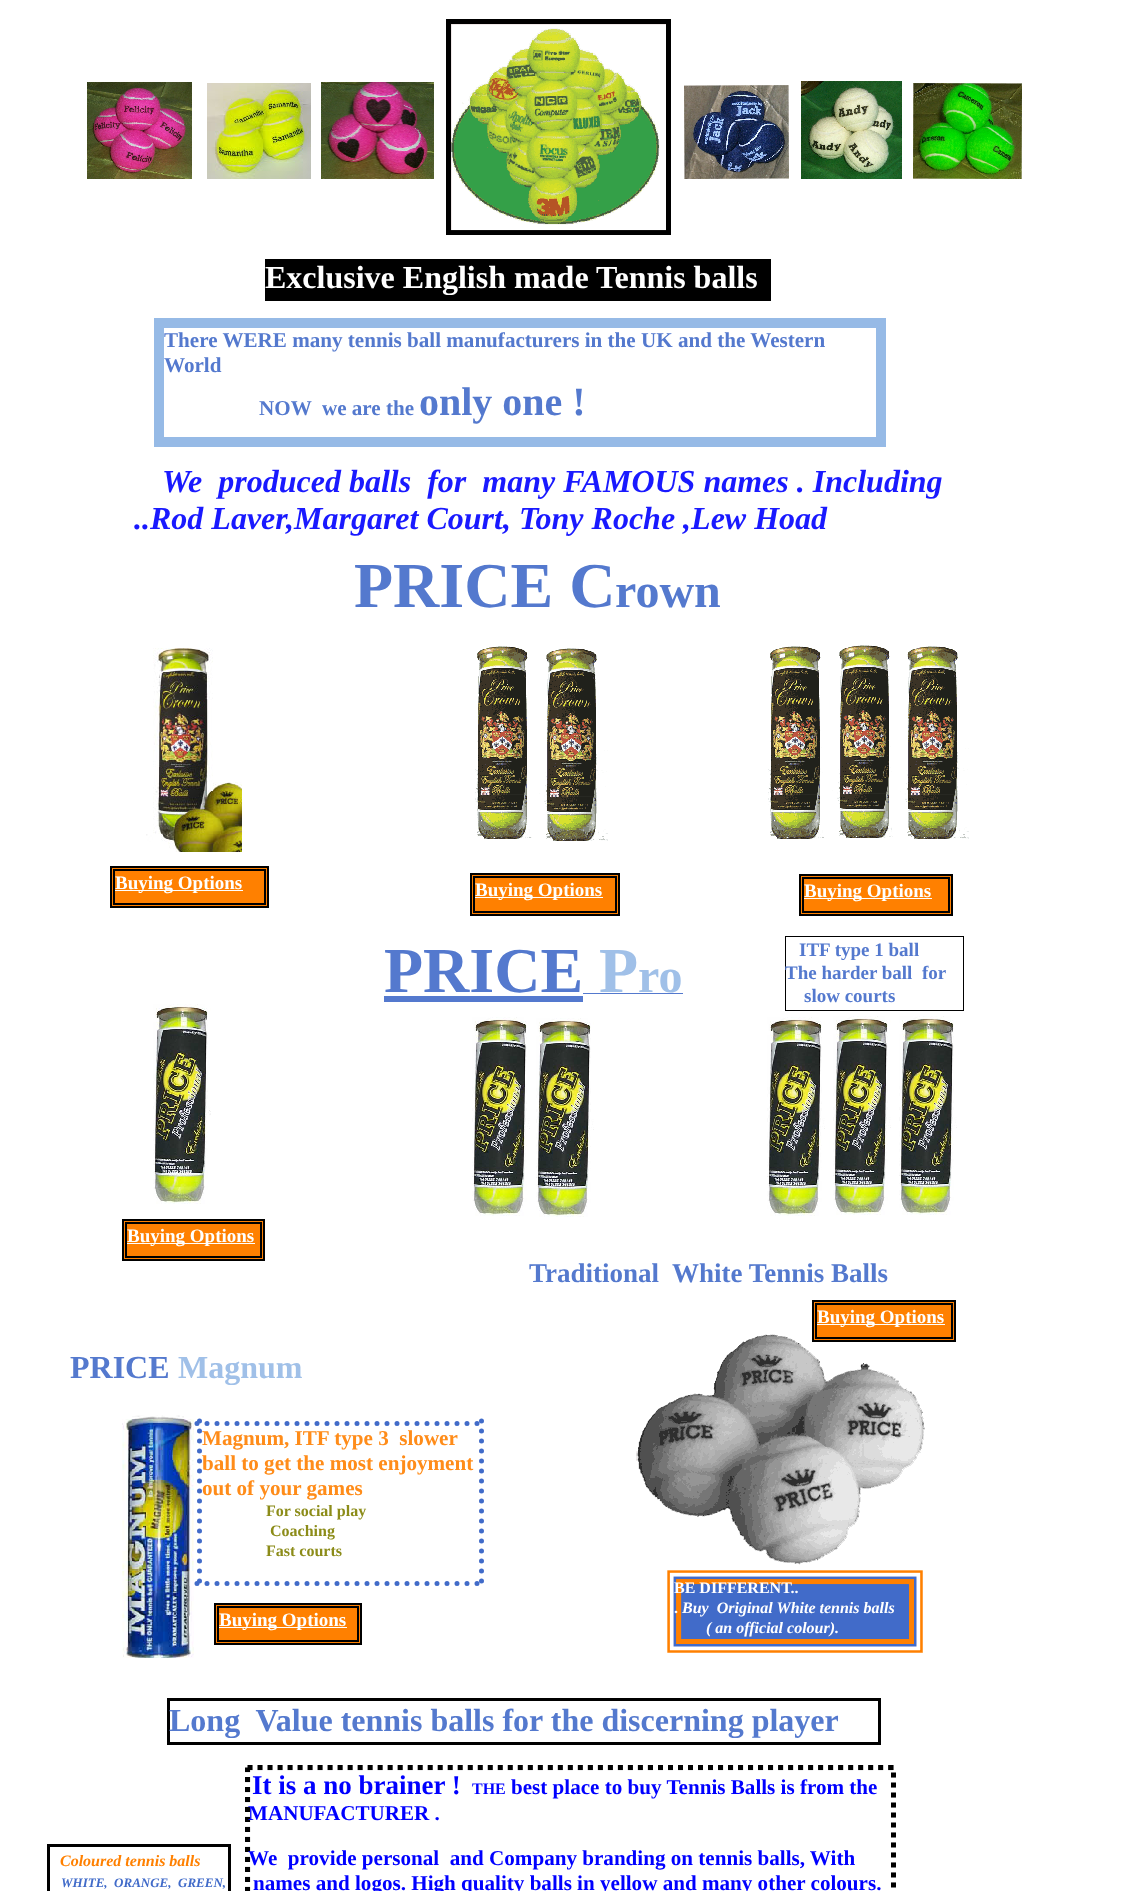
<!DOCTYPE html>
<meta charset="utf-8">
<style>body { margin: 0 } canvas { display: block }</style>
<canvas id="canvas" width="1132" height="1891"></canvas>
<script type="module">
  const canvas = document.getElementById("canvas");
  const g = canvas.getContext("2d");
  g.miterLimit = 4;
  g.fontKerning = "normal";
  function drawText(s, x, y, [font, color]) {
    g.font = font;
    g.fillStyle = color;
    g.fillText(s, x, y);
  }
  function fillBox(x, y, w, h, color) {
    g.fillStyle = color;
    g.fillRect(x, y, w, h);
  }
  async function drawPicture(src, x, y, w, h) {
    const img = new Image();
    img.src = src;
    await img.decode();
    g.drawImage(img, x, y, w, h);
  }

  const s1 = ["bold 32px Liberation Serif", "#FFFFFF"];
  const s2 = ["bold 21.1px Liberation Serif", "#5479CE"];
  const s3 = ["bold 40px Liberation Serif", "#5479CE"];
  const s4 = ["italic bold 32px Liberation Serif", "#1919FF"];
  const s5 = ["bold 64px Liberation Serif", "#5479CE"];
  const s6 = ["bold 48px Liberation Serif", "#5479CE"];
  const s7 = ["bold 19px Liberation Serif", "#FFFFFF"];
  const s8 = ["bold 64px Liberation Serif", "#A0C0E8"];
  const s9 = ["bold 48px Liberation Serif", "#A0C0E8"];
  const s10 = ["bold 19px Liberation Serif", "#5479CE"];
  const s11 = ["bold 27px Liberation Serif", "#5479CE"];
  const s12 = ["bold 32px Liberation Serif", "#5479CE"];
  const s13 = ["bold 32px Liberation Serif", "#A0C0E8"];
  const s14 = ["bold 21.1px Liberation Serif", "#FF8C19"];
  const s15 = ["bold 16px Liberation Serif", "#8C8C19"];
  const s16 = ["bold 16px Liberation Serif", "#FFFFFF"];
  const s17 = ["italic bold 16px Liberation Serif", "#FFFFFF"];
  const s18 = ["bold 27px Liberation Serif", "#0000FF"];
  const s19 = ["bold 16px Liberation Serif", "#0000FF"];
  const s20 = ["bold 21.1px Liberation Serif", "#0000FF"];
  const s21 = ["italic bold 16px Liberation Serif", "#FF8000"];
  const s22 = ["italic bold 13px Liberation Serif", "#416BC9"];

  fillBox(0, 0, 1132, 1891, "#FFFFFF");
  await drawPicture("pic1.png", 87, 82, 105, 97);
  await drawPicture("pic2.png", 207, 83, 104, 96);
  await drawPicture("pic3.png", 321, 82, 113, 97);
  await drawPicture("pic4.png", 446, 19, 225, 216);
  await drawPicture("pic5.png", 684, 85, 105, 94);
  await drawPicture("pic6.png", 801, 81, 101, 98);
  await drawPicture("pic7.png", 913, 83, 109, 96);
  fillBox(265, 259, 506, 42, "#000000");
  drawText("Exclusive English made Tennis balls", 265, 288, s1);
  g.strokeStyle = "#96BAE6";
  g.lineWidth = 10;
  g.strokeRect(159, 323, 722, 119);
  drawText("There WERE many tennis ball manufacturers in the UK and the Western", 164, 347, s2);
  drawText("World", 164, 372, s2);
  drawText("NOW  we are the", 259, 415, s2);
  drawText("only one !", 419, 415, s3);
  drawText("We  produced balls  for  many FAMOUS names . Including", 162, 492, s4);
  drawText("..Rod Laver,Margaret Court, Tony Roche ,Lew Hoad", 134, 529, s4);
  drawText("PRICE C", 354, 607, s5);
  drawText("rown", 615, 607, s6);
  await drawPicture("pic8.png", 146, 648, 96, 204);
  await drawPicture("pic9.png", 475, 646, 133, 195);
  await drawPicture("pic10.png", 768, 645, 201, 194);
  g.fillStyle = "#FF8000";
  g.beginPath();
  g.rect(111, 867, 157, 40);
  g.fill();
  g.strokeStyle = "#000000";
  g.lineWidth = 2;
  g.stroke();
  g.strokeRect(114, 870, 151, 34);
  fillBox(115, 890, 128, 1, "#FFFFFF");
  drawText("Buying Options", 115, 889, s7);
  g.fillStyle = "#FF8000";
  g.beginPath();
  g.rect(471, 874, 148, 41);
  g.fill();
  g.stroke();
  g.strokeRect(474, 877, 142, 35);
  fillBox(475, 897, 128, 1, "#FFFFFF");
  drawText("Buying Options", 475, 896, s7);
  g.fillStyle = "#FF8000";
  g.beginPath();
  g.rect(800, 875, 152, 40);
  g.fill();
  g.stroke();
  g.strokeRect(803, 878, 146, 34);
  fillBox(804, 898, 128, 1, "#FFFFFF");
  drawText("Buying Options", 804, 897, s7);
  g.lineWidth = 1;
  g.strokeRect(785.5, 936.5, 178, 74);
  drawText("PRICE", 384, 992, s5);
  fillBox(384, 996, 199, 6, "#5479CE");
  drawText("P", 599, 992, s8);
  drawText("ro", 638, 992, s9);
  fillBox(583, 993, 100, 1, "#5479CE");
  drawText("ITF type 1 ball", 799, 956, s10);
  drawText("The harder ball  for", 785, 979, s10);
  drawText("slow courts", 804, 1002, s10);
  await drawPicture("pic11.png", 153, 1004, 58, 200);
  await drawPicture("pic12.png", 472, 1017, 58, 199);
  await drawPicture("pic12.png", 536, 1018, 58, 199);
  await drawPicture("pic12.png", 767, 1017, 58, 199);
  await drawPicture("pic12.png", 833, 1016, 58, 199);
  await drawPicture("pic12.png", 899, 1016, 58, 199);
  g.fillStyle = "#FF8000";
  g.beginPath();
  g.rect(123, 1220, 141, 40);
  g.fill();
  g.lineWidth = 2;
  g.stroke();
  g.strokeRect(126, 1223, 135, 34);
  fillBox(127, 1243, 128, 1, "#FFFFFF");
  drawText("Buying Options", 127, 1242, s7);
  drawText("Traditional  White Tennis Balls", 529, 1282, s11);
  await drawPicture("pic13.png", 636, 1334, 289, 231);
  g.fillStyle = "#FF8000";
  g.beginPath();
  g.rect(813, 1301, 142, 40);
  g.fill();
  g.stroke();
  g.strokeRect(816, 1304, 136, 34);
  fillBox(817, 1324, 128, 1, "#FFFFFF");
  drawText("Buying Options", 817, 1323, s7);
  drawText("PRICE", 70, 1378, s12);
  drawText("Magnum", 178, 1378, s13);
  await drawPicture("pic14.png", 122, 1415, 72, 243);
  g.beginPath();
  g.moveTo(197, 1423.5);
  g.lineTo(484, 1423.5);
  g.strokeStyle = "#416BC9";
  g.lineWidth = 5;
  g.lineCap = "round";
  g.setLineDash([0, 10]);
  g.stroke();
  g.beginPath();
  g.moveTo(481.5, 1421);
  g.lineTo(481.5, 1586);
  g.stroke();
  g.beginPath();
  g.moveTo(197, 1583.5);
  g.lineTo(484, 1583.5);
  g.stroke();
  g.beginPath();
  g.moveTo(199.5, 1421);
  g.lineTo(199.5, 1586);
  g.stroke();
  drawText("Magnum, ITF type 3  slower", 202, 1445, s14);
  drawText("ball to get the most enjoyment", 202, 1470, s14);
  drawText("out of your games", 202, 1495, s14);
  drawText("For social play", 266, 1516, s15);
  drawText("Coaching", 270, 1536, s15);
  drawText("Fast courts", 266, 1556, s15);
  await drawPicture("pic15.png", 667, 1570, 256, 83);
  g.fillStyle = "#FF8000";
  g.beginPath();
  g.rect(215, 1604, 146, 40);
  g.fill();
  g.strokeStyle = "#000000";
  g.lineWidth = 2;
  g.setLineDash([]);
  g.stroke();
  g.strokeRect(218, 1607, 140, 34);
  fillBox(219, 1627, 128, 1, "#FFFFFF");
  drawText("Buying Options", 219, 1626, s7);
  drawText("BE DIFFERENT..", 674, 1593, s16);
  drawText(".", 674, 1613, s16);
  drawText("Buy  Original White tennis balls", 682, 1613, s17);
  drawText("( an official colour).", 706, 1633, s17);
  g.lineWidth = 3;
  g.strokeRect(168.5, 1699.5, 711, 44);
  drawText("Long  Value tennis balls for the discerning player", 169, 1731, s12);
  await drawPicture("pic16.png", 245, 1765, 651, 126);
  g.strokeRect(48.5, 1845.5, 181, 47);
  drawText("It is a no brainer !", 252, 1794, s18);
  drawText("THE", 472, 1794, s19);
  drawText("best place to buy Tennis Balls is from the", 511, 1794, s20);
  drawText("MANUFACTURER .", 248, 1820, s20);
  drawText("We  provide personal  and Company branding on tennis balls, With", 248, 1865, s20);
  drawText("names and logos. High quality balls in yellow and many other colours.", 253, 1890, s20);
  drawText("Coloured tennis balls", 60, 1866, s21);
  drawText("WHITE,  ORANGE,  GREEN,", 61, 1887, s22);
</script>
